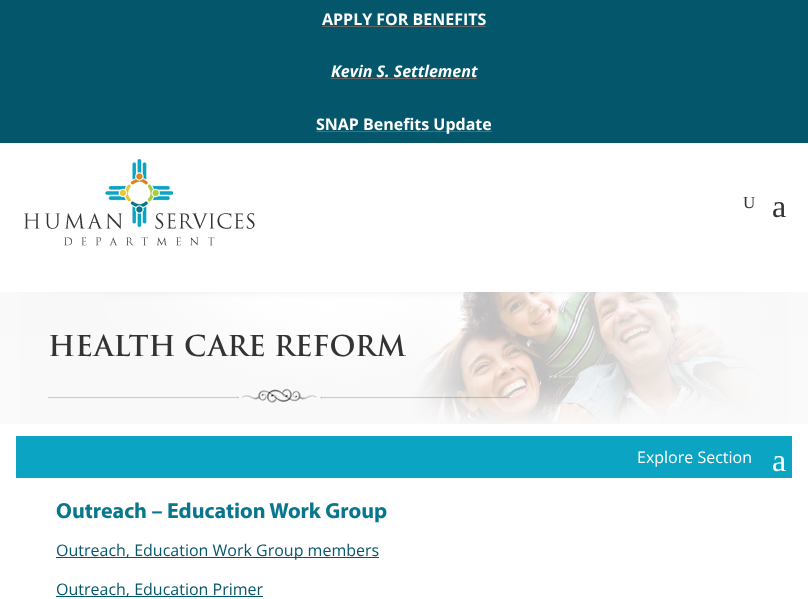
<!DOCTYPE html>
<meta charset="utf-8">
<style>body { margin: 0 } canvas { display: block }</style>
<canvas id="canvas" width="808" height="599"></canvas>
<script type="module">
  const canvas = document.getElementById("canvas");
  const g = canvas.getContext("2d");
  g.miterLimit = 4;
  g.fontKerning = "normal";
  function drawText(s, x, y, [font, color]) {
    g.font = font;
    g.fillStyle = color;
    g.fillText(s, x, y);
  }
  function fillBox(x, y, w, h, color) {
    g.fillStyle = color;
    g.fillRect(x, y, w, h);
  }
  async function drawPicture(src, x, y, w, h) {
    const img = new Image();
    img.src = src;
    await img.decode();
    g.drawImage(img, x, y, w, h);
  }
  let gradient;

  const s1 = ["bold 16px Open Sans", "#FFFFFF"];
  const s2 = ["italic bold 16px Open Sans", "#FFFFFF"];
  const s3 = ["17px Liberation Serif", "#333333"];
  const s4 = ["32px Liberation Serif", "#333333"];
  const s5 = ["600 28px 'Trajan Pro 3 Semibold'", "#333333"];
  const s6 = ["16px Open Sans", "#FFFFFF"];
  const s7 = ["32px Liberation Serif", "#FFFFFF"];
  const s8 = ["bold 22px Myriad", "#08778D"];
  const s9 = ["16px Open Sans", "#04566B"];

  fillBox(0, 0, 808, 599, "#E9E9E9");
  fillBox(0, 0, 808, 143, "#04566B");
  drawText("APPLY FOR BENEFITS", 322, 25, s1);
  fillBox(322, 26, 164, 1, "#666666");
  drawText("Kevin S. Settlement", 331, 77, s2);
  fillBox(331, 78, 146, 1, "#666666");
  fillBox(316, 131, 176, 1, "#666666");
  drawText("SNAP Benefits Update", 316, 130, s1);
  fillBox(0, 143, 808, 149, "#FFFFFF");
  await drawPicture("pic1.png", 24, 159, 231, 87);
  drawText("U", 743, 208, s3);
  drawText("a", 772, 217, s4);
  await drawPicture("pic2.png", 20, 292, 770, 132);
  gradient = g.createLinearGradient(404, 292, 404, 424);
  gradient.addColorStop(0, "rgba(255, 255, 255, 0.74)");
  gradient.addColorStop(1, "rgba(255, 255, 255, 0.77)");
  g.fillStyle = gradient;
  g.fillRect(0, 292, 808, 132);
  drawText("HEALTH CARE REFORM", 48, 356, s5);
  await drawPicture("pic3.png", 48, 388, 462, 15);
  fillBox(0, 424, 808, 175, "#FFFFFF");
  fillBox(16, 436, 776, 42, "#0BA4C3");
  drawText("Explore Section", 637, 463, s6);
  drawText("a", 772, 471, s7);
  drawText("Outreach – Education Work Group", 56, 518, s8);
  fillBox(56, 557, 323, 1, "#04566B");
  drawText("Outreach, Education Work Group members", 56, 556, s9);
  fillBox(56, 596, 207, 1, "#04566B");
  drawText("Outreach, Education Primer", 56, 595, s9);
</script>
